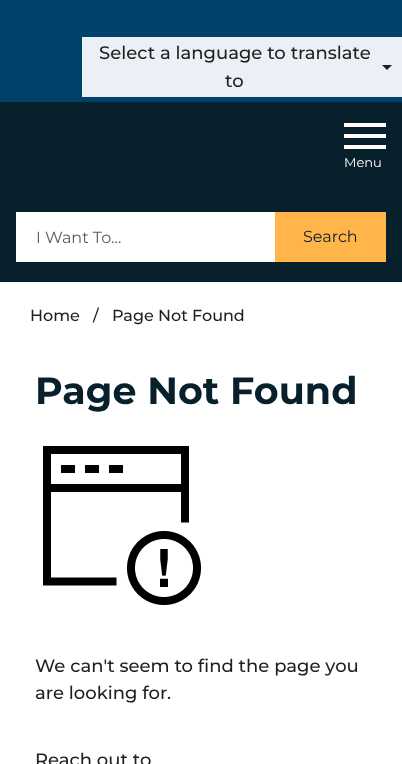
<!DOCTYPE html>
<meta charset="utf-8">
<style>body { margin: 0 } canvas { display: block }</style>
<canvas id="canvas" width="402" height="764"></canvas>
<script type="module">
  const canvas = document.getElementById("canvas");
  const g = canvas.getContext("2d");
  g.miterLimit = 4;
  g.fontKerning = "normal";
  function drawText(s, x, y, [font, color]) {
    g.font = font;
    g.fillStyle = color;
    g.fillText(s, x, y);
  }
  function fillBox(x, y, w, h, color) {
    g.fillStyle = color;
    g.fillRect(x, y, w, h);
  }
  async function drawPicture(src, x, y, w, h) {
    const img = new Image();
    img.src = src;
    await img.decode();
    g.drawImage(img, x, y, w, h);
  }

  const s1 = ["500 18px Montserrat", "#1F1F1F"];
  const s2 = ["13px Montserrat", "#FFFFFF"];
  const s3 = ["16px Montserrat", "#5C5C5C"];
  const s4 = ["16px Montserrat", "#081F2C"];
  const s5 = ["500 16px Montserrat", "#1F1F1F"];
  const s6 = ["bold 38px Montserrat", "#081F2C"];

  fillBox(0, 0, 402, 764, "#FFFFFF");
  fillBox(0, 0, 402, 102, "#01426A");
  fillBox(82, 37, 320, 60, "#EAF0F5");
  drawText("Select a language to translate", 99, 59, s1);
  g.beginPath();
  g.moveTo(382, 65);
  g.lineTo(392, 65);
  g.lineTo(387, 70);
  g.closePath();
  g.fill();
  drawText("to", 225, 87, s1);
  fillBox(0, 102, 402, 180, "#081F2C");
  fillBox(344, 134, 42, 4, "#FFFFFF");
  fillBox(344, 123, 42, 4, "#FFFFFF");
  fillBox(344, 145, 42, 4, "#FFFFFF");
  drawText("Menu", 344, 167, s2);
  fillBox(16, 212, 259, 50, "#FFFFFF");
  drawText("I Want To…", 36, 243, s3);
  fillBox(275, 212, 111, 50, "#FFB549");
  drawText("Search", 303, 242, s4);
  drawText("Home", 30, 321, s5);
  drawText("/", 93, 321, s5);
  drawText("Page Not Found", 112, 321, s5);
  drawText("Page Not Found", 35, 404, s6);
  await drawPicture("pic1.png", 43, 446, 158, 159);
  drawText("We can't seem to find the page you", 35, 672, s1);
  drawText("are looking for.", 35, 699, s1);
  drawText("Reach out to", 35, 766, s1);
</script>
